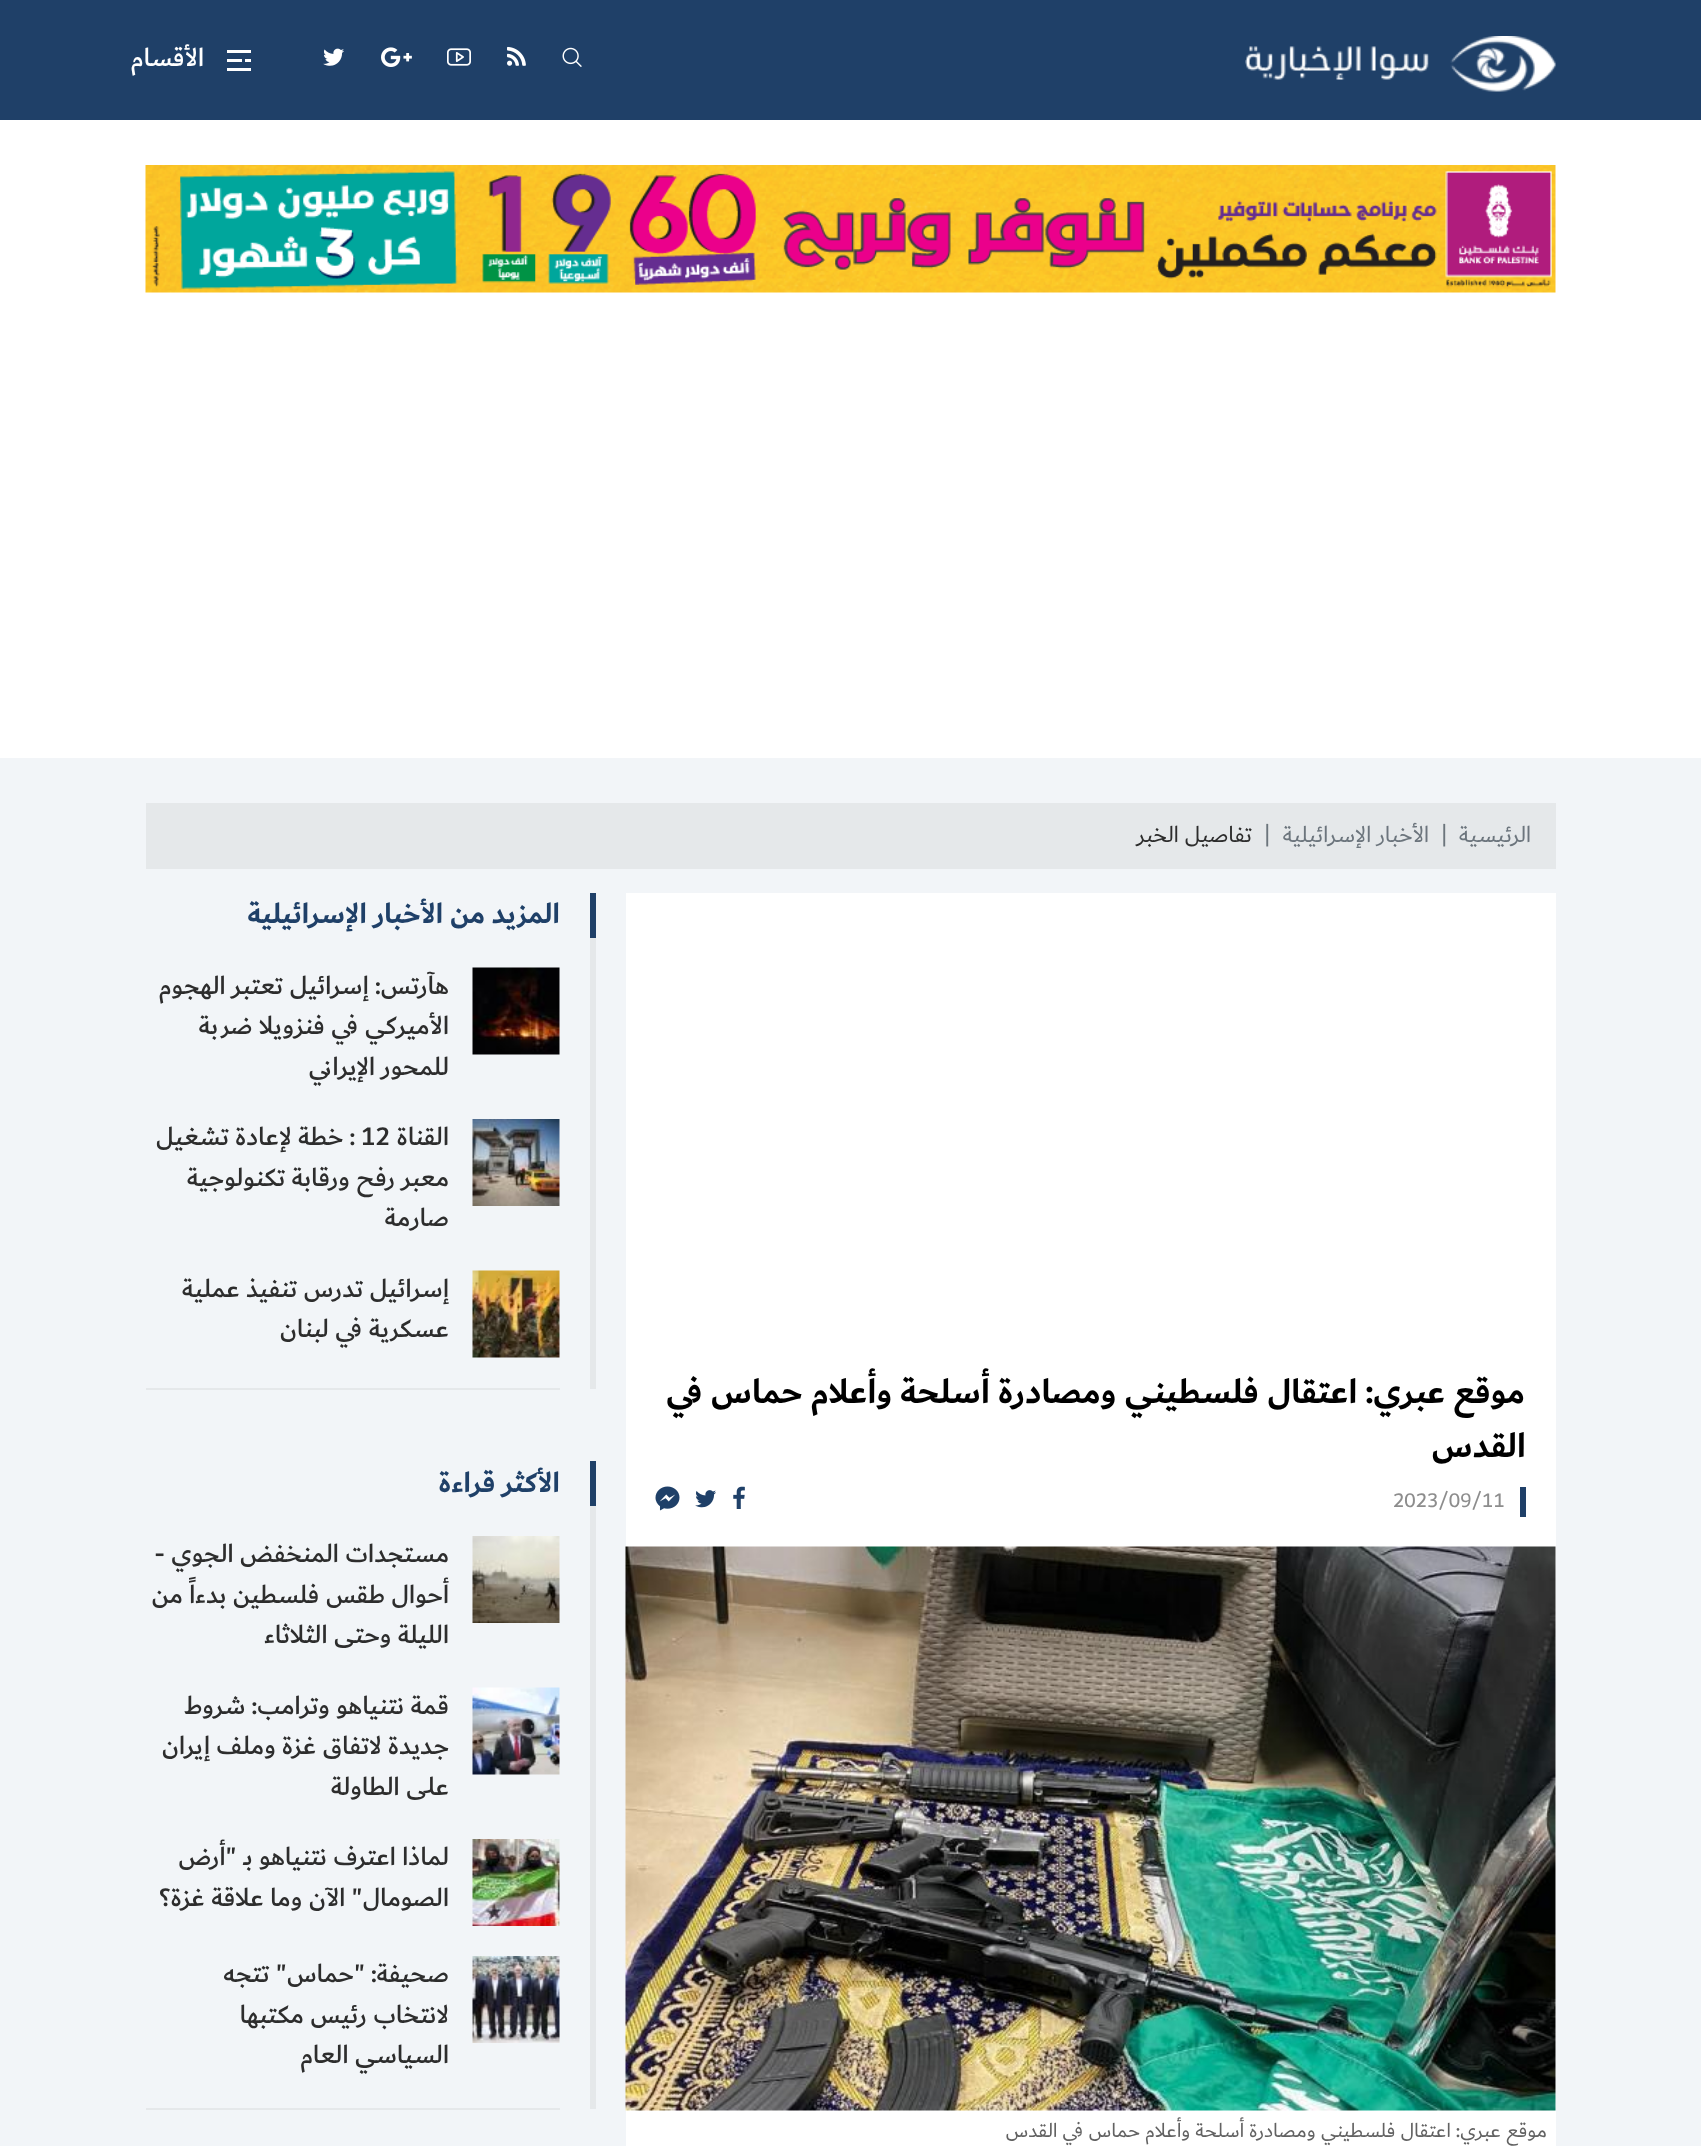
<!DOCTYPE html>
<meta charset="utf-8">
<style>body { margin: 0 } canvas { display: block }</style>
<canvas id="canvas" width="1701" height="2146"></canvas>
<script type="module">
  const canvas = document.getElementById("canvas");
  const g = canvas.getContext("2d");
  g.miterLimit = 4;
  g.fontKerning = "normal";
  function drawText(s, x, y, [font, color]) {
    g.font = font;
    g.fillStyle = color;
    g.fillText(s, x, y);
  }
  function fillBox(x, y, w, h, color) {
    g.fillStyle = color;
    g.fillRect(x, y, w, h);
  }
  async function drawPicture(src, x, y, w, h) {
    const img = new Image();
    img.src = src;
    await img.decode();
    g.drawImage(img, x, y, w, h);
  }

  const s1 = ["500 27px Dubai", "#FFFFFF"];
  const s2 = ["24px Dubai", "#6C757D"];
  const s3 = ["24px Dubai", "#2D2D2D"];
  const s4 = ["bold 36px Dubai", "#000000"];
  const s5 = ["21px Dubai", "#8D8D8D"];
  const s6 = ["21px Dubai", "#626262"];
  const s7 = ["bold 30px Dubai", "#1F4068"];
  const s8 = ["500 27px Dubai", "#2D2D2D"];

  fillBox(0, 0, 1701, 2146, "#F2F5F8");
  fillBox(0, 0, 1701, 120, "#1F4068");
  await drawPicture("pic1.png", 1245, 36, 311, 56);
  await drawPicture("pic2.png", 562, 47, 20, 20);
  await drawPicture("pic3.png", 507, 46, 19, 20);
  await drawPicture("pic4.png", 447, 48, 24, 18);
  await drawPicture("pic5.png", 381, 47, 31, 20);
  await drawPicture("pic6.png", 323, 48, 21, 18);
  fillBox(227, 50, 24, 3, "#FFFFFF");
  fillBox(227, 68, 24, 3, "#FFFFFF");
  fillBox(245, 59, 6, 3, "#FFFFFF");
  fillBox(227, 59, 15, 3, "#FFFFFF");
  g.direction = "rtl";
  drawText("الأقسام", 204, 66, s1);
  fillBox(0, 120, 1701, 638, "#FFFFFF");
  await drawPicture("pic7.png", 145, 165, 1411, 128);
  fillBox(146, 803, 1410, 66, "#E5E8EA");
  drawText("الرئيسية", 1531, 842, s2);
  g.direction = "ltr";
  drawText("|", 1441, 842, s2);
  g.direction = "rtl";
  drawText("الأخبار الإسرائيلية", 1429, 842, s2);
  g.direction = "ltr";
  drawText("|", 1264, 842, s2);
  g.direction = "rtl";
  drawText("تفاصيل الخبر", 1252, 842, s3);
  fillBox(626, 893, 930, 1253, "#FFFFFF");
  drawText("موقع عبري: اعتقال فلسطيني ومصادرة أسلحة وأعلام حماس في", 1525, 1403, s4);
  drawText("القدس", 1526, 1457, s4);
  fillBox(1520, 1487, 6, 30, "#1F4068");
  g.direction = "ltr";
  drawText("2023/09/11", 1393, 1507, s5);
  await drawPicture("pic8.png", 733, 1486, 12, 23);
  await drawPicture("pic9.png", 695, 1490, 21, 18);
  await drawPicture("pic10.png", 655, 1486, 25, 25);
  await drawPicture("pic11.png", 625, 1546, 931, 565);
  g.direction = "rtl";
  drawText("موقع عبري: اعتقال فلسطيني ومصادرة أسلحة وأعلام حماس في القدس", 1547, 2137, s6);
  fillBox(590, 938, 6, 451, "#E5E8EA");
  fillBox(590, 893, 6, 45, "#1F4068");
  drawText("المزيد", 560, 923, s7);
  drawText("من الأخبار الإسرائيلية", 485, 923, s7);
  await drawPicture("pic12.png", 472, 967, 88, 88);
  drawText("هآرتس: إسرائيل تعتبر الهجوم", 449, 994, s8);
  drawText("الأميركي في فنزويلا ضربة", 449, 1034, s8);
  drawText("للمحور الإيراني", 449, 1075, s8);
  await drawPicture("pic13.png", 472, 1119, 88, 87);
  drawText("القناة", 449, 1145, s8);
  g.direction = "ltr";
  drawText("12", 361, 1145, s8);
  g.direction = "rtl";
  drawText(": خطة لإعادة تشغيل", 355, 1145, s8);
  drawText("معبر رفح ورقابة تكنولوجية", 449, 1186, s8);
  drawText("صارمة", 449, 1226, s8);
  await drawPicture("pic14.png", 472, 1270, 88, 88);
  drawText("إسرائيل تدرس تنفيذ عملية", 449, 1297, s8);
  drawText("عسكرية في لبنان", 449, 1337, s8);
  fillBox(146, 1388, 414, 2, "#E5E8EA");
  fillBox(590, 1506, 6, 603, "#E5E8EA");
  fillBox(590, 1461, 6, 45, "#1F4068");
  drawText("الأكثر قراءة", 560, 1492, s7);
  await drawPicture("pic15.png", 472, 1536, 88, 87);
  drawText("مستجدات المنخفض الجوي -", 449, 1562, s8);
  drawText("أحوال طقس فلسطين بدءاً من", 449, 1603, s8);
  drawText("الليلة وحتى الثلاثاء", 449, 1643, s8);
  await drawPicture("pic16.png", 472, 1687, 88, 88);
  drawText("قمة نتنياهو وترامب: شروط", 449, 1714, s8);
  drawText("جديدة لاتفاق غزة وملف إيران", 449, 1754, s8);
  drawText("على الطاولة", 449, 1795, s8);
  await drawPicture("pic17.png", 472, 1839, 88, 87);
  drawText("لماذا اعترف نتنياهو بـ \"أرض", 449, 1865, s8);
  drawText("الصومال\" الآن وما علاقة غزة؟", 449, 1906, s8);
  await drawPicture("pic18.png", 472, 1956, 88, 87);
  drawText("صحيفة: \"حماس\" تتجه", 449, 1982, s8);
  drawText("لانتخاب رئيس مكتبها", 449, 2023, s8);
  drawText("السياسي العام", 449, 2063, s8);
  fillBox(146, 2108, 414, 2, "#E5E8EA");
</script>
